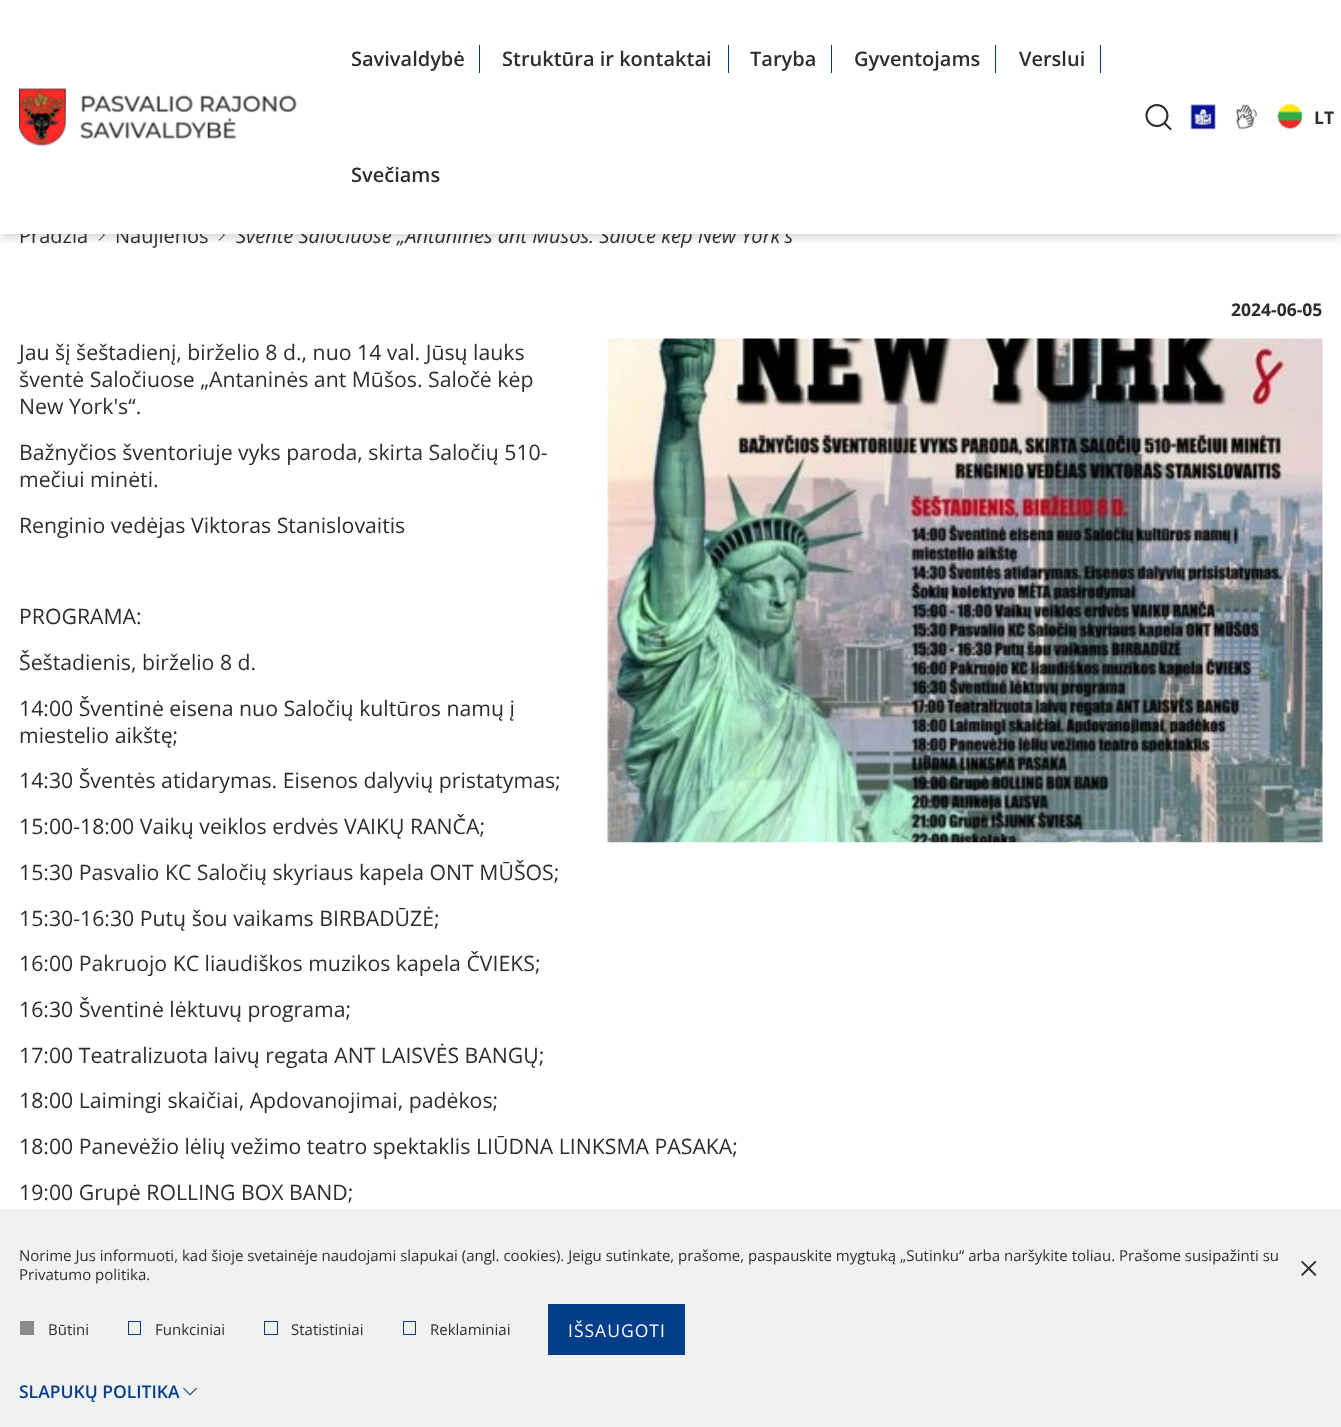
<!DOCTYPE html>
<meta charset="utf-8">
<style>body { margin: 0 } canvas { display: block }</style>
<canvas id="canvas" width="1341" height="1427"></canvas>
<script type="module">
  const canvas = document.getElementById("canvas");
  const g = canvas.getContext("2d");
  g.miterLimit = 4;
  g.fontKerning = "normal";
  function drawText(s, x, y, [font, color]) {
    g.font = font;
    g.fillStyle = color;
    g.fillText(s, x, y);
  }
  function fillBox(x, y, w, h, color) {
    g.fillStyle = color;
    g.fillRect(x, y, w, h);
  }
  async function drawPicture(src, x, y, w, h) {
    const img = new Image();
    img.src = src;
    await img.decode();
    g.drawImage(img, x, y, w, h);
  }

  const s1 = ["20px Open Sans", "#2D2D2D"];
  const s2 = ["italic 20px Open Sans", "#2D2D2D"];
  const s3 = ["600 20px Open Sans", "#2D2D2D"];
  const s4 = ["bold 17.5px Open Sans", "#2D2D2D"];
  const s5 = ["21.25px Open Sans", "#2D2D2D"];
  const s6 = ["15px Open Sans", "#2D2D2D"];
  const s7 = ["38px Liberation Serif", "#2D2D2D"];
  const s8 = ["17.5px Open Sans", "#FFFFFF"];
  const s9 = ["600 17.5px Open Sans", "#023E8A"];

  fillBox(0, 0, 1341, 1427, "#FFFFFF");
  await drawPicture("pic6.png", 98, 234, 7, 7);
  await drawPicture("pic6.png", 218, 234, 7, 7);
  g.fillStyle = "rgba(0, 0, 0, 0.16)";
  g.filter = "blur(4px)";
  g.beginPath();
  g.rect(0, 4, 1341, 234);
  g.fill();
  g.filter = "none";
  drawText("Pradžia", 19, 243, s1);
  drawText("Naujienos", 115, 243, s1);
  drawText("Šventė Saločiuose „Antaninės ant Mūšos. Saločė kėp New York's", 236, 243, s2);
  fillBox(0, 0, 1341, 234, "#FFFFFF");
  await drawPicture("pic1.png", 19, 88, 278, 58);
  drawText("Savivaldybė", 351, 66, s3);
  fillBox(479, 45, 1, 28, "#023E8A");
  drawText("Struktūra ir kontaktai", 502, 66, s3);
  fillBox(728, 45, 1, 28, "#023E8A");
  drawText("Taryba", 750, 66, s3);
  fillBox(831, 45, 1, 28, "#023E8A");
  drawText("Gyventojams", 854, 66, s3);
  fillBox(995, 45, 1, 28, "#023E8A");
  drawText("Verslui", 1019, 66, s3);
  fillBox(1100, 45, 1, 28, "#023E8A");
  drawText("Svečiams", 351, 182, s3);
  await drawPicture("pic2.png", 1145, 104, 27, 27);
  await drawPicture("pic3.png", 1190, 104, 26, 26);
  await drawPicture("pic4.png", 1236, 104, 21, 26);
  await drawPicture("pic5.png", 1277, 103, 26, 26);
  drawText("LT", 1314, 124, s4);
  drawText("2024-06-05", 1231, 316, s4);
  drawText("Jau šį šeštadienį, birželio 8 d., nuo 14 val. Jūsų lauks", 19, 360, s5);
  drawText("šventė Saločiuose „Antaninės ant Mūšos. Saločė kėp", 19, 387, s5);
  drawText("New York's“.", 19, 414, s5);
  drawText("Bažnyčios šventoriuje vyks paroda, skirta Saločių 510-", 19, 460, s5);
  drawText("mečiui minėti.", 19, 487, s5);
  drawText("Renginio vedėjas Viktoras Stanislovaitis", 19, 533, s5);
  drawText("PROGRAMA:", 19, 624, s5);
  drawText("Šeštadienis, birželio 8 d.", 19, 670, s5);
  drawText("14:00 Šventinė eisena nuo Saločių kultūros namų į", 19, 716, s5);
  drawText("miestelio aikštę;", 19, 743, s5);
  drawText("14:30 Šventės atidarymas. Eisenos dalyvių pristatymas;", 19, 788, s5);
  drawText("15:00-18:00 Vaikų veiklos erdvės VAIKŲ RANČA;", 19, 834, s5);
  drawText("15:30 Pasvalio KC Saločių skyriaus kapela ONT MŪŠOS;", 19, 880, s5);
  drawText("15:30-16:30 Putų šou vaikams BIRBADŪZĖ;", 19, 926, s5);
  drawText("16:00 Pakruojo KC liaudiškos muzikos kapela ČVIEKS;", 19, 971, s5);
  drawText("16:30 Šventinė lėktuvų programa;", 19, 1017, s5);
  drawText("17:00 Teatralizuota laivų regata ANT LAISVĖS BANGŲ;", 19, 1063, s5);
  drawText("18:00 Laimingi skaičiai, Apdovanojimai, padėkos;", 19, 1108, s5);
  drawText("18:00 Panevėžio lėlių vežimo teatro spektaklis LIŪDNA LINKSMA PASAKA;", 19, 1154, s5);
  drawText("19:00 Grupė ROLLING BOX BAND;", 19, 1200, s5);
  await drawPicture("pic7.png", 607, 338, 716, 505);
  fillBox(0, 1209, 1341, 218, "#F1F1F1");
  drawText("Norime Jus informuoti, kad šioje svetainėje naudojami slapukai (angl. cookies). Jeigu sutinkate, prašome, paspauskite mygtuką „Sutinku“ arba naršykite toliau. Prašome susipažinti su", 19, 1261, s6);
  drawText("Privatumo politika.", 19, 1280, s6);
  drawText("×", 1298, 1281, s7);
  fillBox(20, 1321, 14, 14, "#8B8B8B");
  drawText("Būtini", 48, 1335, s6);
  g.strokeStyle = "#023E8A";
  g.strokeRect(128.5, 1321.5, 12, 13);
  drawText("Funkciniai", 155, 1335, s6);
  g.strokeRect(264.5, 1321.5, 13, 13);
  drawText("Statistiniai", 291, 1335, s6);
  g.strokeRect(403.5, 1321.5, 12, 13);
  drawText("Reklaminiai", 430, 1335, s6);
  fillBox(548, 1304, 137, 51, "#023E8A");
  g.letterSpacing = "1px";
  drawText("IŠSAUGOTI", 568, 1337, s8);
  g.letterSpacing = "0px";
  drawText("SLAPUKŲ POLITIKA", 19, 1398, s9);
  await drawPicture("pic8.png", 183, 1387, 14, 9);
</script>
